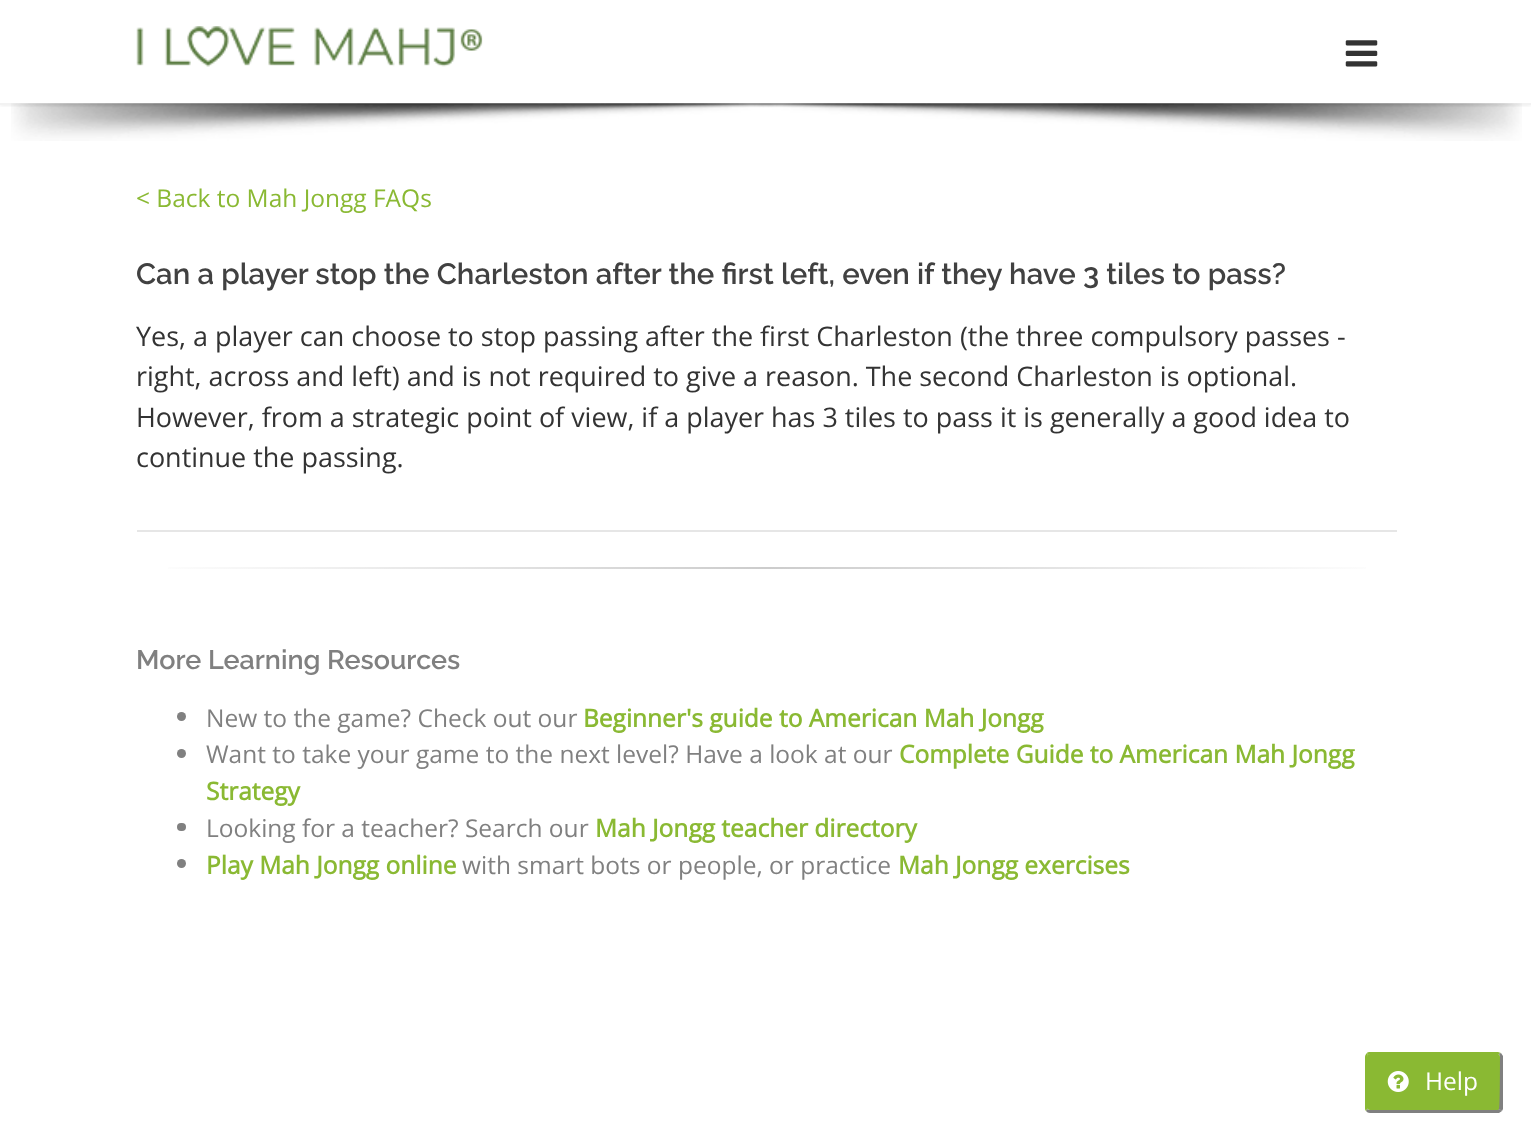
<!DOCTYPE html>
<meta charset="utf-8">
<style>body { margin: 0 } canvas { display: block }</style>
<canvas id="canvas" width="1531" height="1140"></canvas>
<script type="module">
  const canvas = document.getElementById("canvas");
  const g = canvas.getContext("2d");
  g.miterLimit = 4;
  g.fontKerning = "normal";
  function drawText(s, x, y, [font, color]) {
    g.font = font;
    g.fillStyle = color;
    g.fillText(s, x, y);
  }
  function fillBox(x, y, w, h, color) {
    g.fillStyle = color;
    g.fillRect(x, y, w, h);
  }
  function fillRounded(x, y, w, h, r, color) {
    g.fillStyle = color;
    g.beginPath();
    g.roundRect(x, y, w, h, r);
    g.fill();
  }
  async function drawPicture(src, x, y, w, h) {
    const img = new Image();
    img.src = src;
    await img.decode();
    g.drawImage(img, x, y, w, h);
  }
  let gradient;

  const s1 = ["24.5px Open Sans", "#8AB933"];
  const s2 = ["600 29.4px Raleway", "#414141"];
  const s3 = ["26.95px Open Sans", "#333333"];
  const s4 = ["600 26.95px Raleway", "#808080"];
  const s5 = ["24.5px Open Sans", "#808080"];
  const s6 = ["bold 24.5px Open Sans", "#8AB933"];
  const s7 = ["24.5px Open Sans", "#FFFFFF"];

  fillBox(0, 0, 1531, 1140, "#FFFFFF");
  g.save();
  g.beginPath();
  g.rect(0, 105, 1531, 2);
  g.clip();
  g.fillStyle = "rgba(0, 0, 0, 0.1)";
  g.filter = "blur(2px)";
  g.beginPath();
  g.rect(0, 0, 1531, 105);
  g.fill();
  g.filter = "none";
  g.restore();
  fillBox(0, 103, 1531, 2, "#F2F2F2");
  await drawPicture("pic1.png", 136, 26, 347, 41);
  await drawPicture("pic2.png", 1345, 40, 33, 27);
  await drawPicture("pic3.png", 11, 103, 1511, 38);
  drawText("< Back to Mah Jongg FAQs", 136, 207, s1);
  fillBox(137, 530, 1260, 2, "#E6E6E6");
  drawText("Can a player stop the Charleston after the first left, even if they have 3 tiles to pass?", 136, 284, s2);
  drawText("Yes, a player can choose to stop passing after the first Charleston (the three compulsory passes -", 136, 346, s3);
  drawText("right, across and left) and is not required to give a reason. The second Charleston is optional.", 136, 386, s3);
  drawText("However, from a strategic point of view, if a player has 3 tiles to pass it is generally a good idea to", 136, 427, s3);
  drawText("continue the passing.", 136, 467, s3);
  gradient = g.createLinearGradient(137, 568, 1397, 568);
  gradient.addColorStop(0, "#FFFFFF");
  gradient.addColorStop(0.5, "#CCCCCC");
  gradient.addColorStop(1, "#FFFFFF");
  g.fillStyle = gradient;
  g.fillRect(168, 567, 1198, 2);
  drawText("More Learning Resources", 136, 669, s4);
  g.beginPath();
  g.arc(181.5, 716.5, 4.5, 0, Math.PI * 2);
  g.fill();
  drawText("New to the game? Check out our", 206, 727, s5);
  drawText("Beginner's guide to American Mah Jongg", 583, 727, s6);
  g.fillStyle = "#808080";
  g.beginPath();
  g.arc(181.5, 753.5, 4.5, 0, Math.PI * 2);
  g.fill();
  drawText("Want to take your game to the next level? Have a look at our", 206, 763, s5);
  drawText("Complete Guide to American Mah Jongg", 899, 763, s6);
  drawText("Strategy", 206, 800, s6);
  fillRounded(177, 823, 9, 8, 4, "#808080");
  drawText("Looking for a teacher? Search our", 206, 837, s5);
  drawText("Mah Jongg teacher directory", 595, 837, s6);
  g.fillStyle = "#808080";
  g.beginPath();
  g.arc(181.5, 863.5, 4.5, 0, Math.PI * 2);
  g.fill();
  drawText("Play Mah Jongg online", 206, 874, s6);
  drawText("with smart bots or people, or practice", 462, 874, s5);
  drawText("Mah Jongg exercises", 898, 874, s6);
  g.beginPath();
  g.moveTo(1370, 1054);
  g.lineTo(1498, 1054);
  g.bezierCurveTo(1499, 1054, 1500, 1055, 1500, 1057);
  g.lineTo(1500, 1108);
  g.bezierCurveTo(1500, 1109, 1499, 1110, 1498, 1110);
  g.lineTo(1370, 1110);
  g.bezierCurveTo(1368, 1110, 1367, 1109, 1367, 1108);
  g.lineTo(1367, 1057);
  g.bezierCurveTo(1367, 1055, 1368, 1054, 1370, 1054);
  g.closePath();
  g.fill();
  g.beginPath();
  g.moveTo(1370, 1052);
  g.bezierCurveTo(1369, 1052, 1367, 1052, 1367, 1053);
  g.lineTo(1368, 1055);
  g.lineTo(1370, 1054);
  g.lineTo(1499, 1054);
  g.lineTo(1501, 1053);
  g.lineTo(1498, 1052);
  g.closePath();
  g.fill();
  g.fillStyle = "#808080";
  g.beginPath();
  g.moveTo(1501, 1053);
  g.lineTo(1503, 1056);
  g.lineTo(1503, 1109);
  g.lineTo(1502, 1111);
  g.lineTo(1499, 1109);
  g.bezierCurveTo(1500, 1108, 1500, 1061, 1500, 1056);
  g.bezierCurveTo(1500, 1056, 1499, 1054, 1499, 1054);
  g.closePath();
  g.fill();
  g.beginPath();
  g.moveTo(1370, 1113);
  g.lineTo(1499, 1113);
  g.lineTo(1502, 1111);
  g.lineTo(1499, 1109);
  g.lineTo(1498, 1110);
  g.lineTo(1370, 1110);
  g.bezierCurveTo(1369, 1110, 1368, 1110, 1367, 1109);
  g.lineTo(1366, 1111);
  g.bezierCurveTo(1367, 1112, 1368, 1113, 1370, 1113);
  g.closePath();
  g.fill();
  g.fillStyle = "#8AB933";
  g.beginPath();
  g.moveTo(1365, 1057);
  g.lineTo(1365, 1108);
  g.bezierCurveTo(1365, 1109, 1365, 1110, 1366, 1111);
  g.lineTo(1367, 1109);
  g.lineTo(1367, 1057);
  g.lineTo(1368, 1055);
  g.lineTo(1367, 1053);
  g.bezierCurveTo(1366, 1054, 1365, 1055, 1365, 1057);
  g.closePath();
  g.fill();
  await drawPicture("pic4.png", 1387, 1071, 22, 21);
  drawText("Help", 1425, 1090, s7);
</script>
